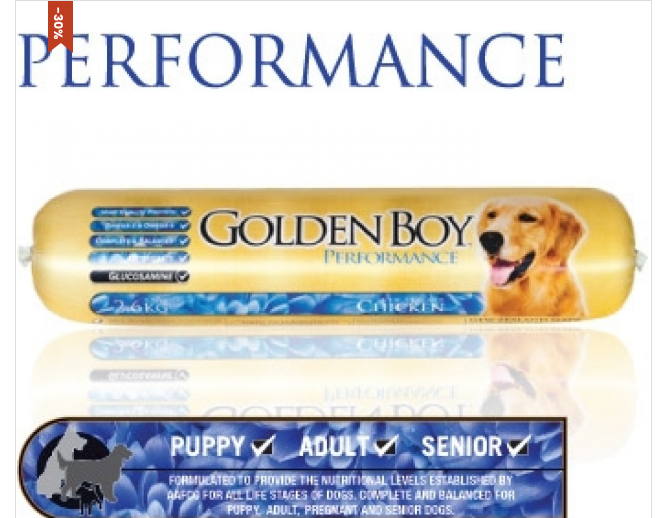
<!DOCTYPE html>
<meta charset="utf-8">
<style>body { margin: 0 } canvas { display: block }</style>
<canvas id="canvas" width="667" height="518"></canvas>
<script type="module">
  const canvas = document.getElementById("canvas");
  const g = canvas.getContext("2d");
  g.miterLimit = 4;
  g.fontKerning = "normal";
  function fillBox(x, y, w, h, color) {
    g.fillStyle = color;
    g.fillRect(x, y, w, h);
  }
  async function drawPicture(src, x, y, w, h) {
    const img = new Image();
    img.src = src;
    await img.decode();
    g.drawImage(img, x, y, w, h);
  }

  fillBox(0, 0, 667, 518, "#FFFFFF");
  g.strokeStyle = "#DDDDDD";
  g.strokeRect(15.5, 0.5, 636, 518);
  await drawPicture("pic2.png", 17, 30, 632, 488);
  await drawPicture("pic1.png", 48, 1, 25, 52);
  g.font = "bold 12px Poppins";
  g.save();
  g.translate(54, 7);
  g.rotate(90 * Math.PI / 180);
  g.fillText("-30%", 0, 0);
  g.restore();
</script>
